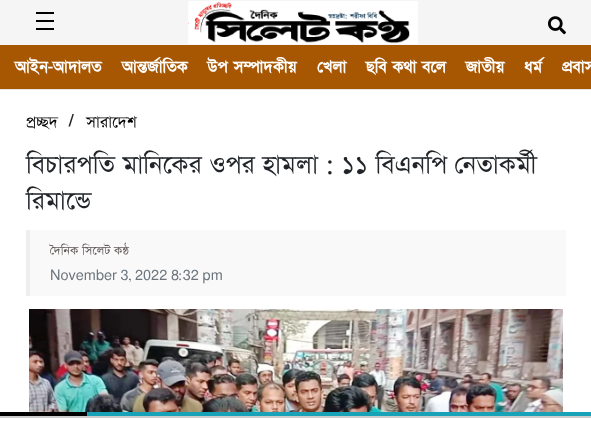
<!DOCTYPE html>
<meta charset="utf-8">
<style>body { margin: 0 } canvas { display: block }</style>
<canvas id="canvas" width="591" height="446"></canvas>
<script type="module">
  const canvas = document.getElementById("canvas");
  const g = canvas.getContext("2d");
  g.miterLimit = 4;
  g.fontKerning = "normal";
  function drawText(s, x, y, [font, color]) {
    g.font = font;
    g.fillStyle = color;
    g.fillText(s, x, y);
  }
  function fillBox(x, y, w, h, color) {
    g.fillStyle = color;
    g.fillRect(x, y, w, h);
  }
  async function drawPicture(src, x, y, w, h) {
    const img = new Image();
    img.src = src;
    await img.decode();
    g.drawImage(img, x, y, w, h);
  }

  const s1 = ["bold 16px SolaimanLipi", "#FFFFFF"];
  const s2 = ["19px SolaimanLipi", "#000000"];
  const s3 = ["bold 16px SolaimanLipi", "#212529"];
  const s4 = ["30px SolaimanLipi", "#212529"];
  const s5 = ["14.5px SolaimanLipi", "#645B5B"];
  const s6 = ["14.5px 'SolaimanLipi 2'", "#6C757D"];
  const s7 = ["14.5px SolaimanLipi", "#6C757D"];

  fillBox(0, 0, 591, 446, "#FFFFFF");
  fillBox(0, 0, 591, 45, "#F5F5F5");
  fillBox(36, 12, 18, 2, "#000000");
  fillBox(36, 20, 18, 2, "#000000");
  fillBox(36, 28, 18, 2, "#000000");
  await drawPicture("pic1.png", 188, 1, 230, 43);
  await drawPicture("pic2.png", 548, 16, 18, 19);
  fillBox(0, 89, 591, 1, "#E6E6E6");
  fillBox(0, 45, 591, 44, "#A75601");
  drawText("আইন-আদালত", 15, 72, s1);
  drawText("আন্তর্জাতিক", 122, 72, s1);
  drawText("উপ সম্পাদকীয়", 207, 72, s1);
  drawText("খেলা", 317, 72, s1);
  drawText("ছবি কথা বলে", 366, 72, s1);
  drawText("জাতীয়", 466, 72, s1);
  drawText("ধর্ম", 524, 72, s1);
  drawText("প্রবাস", 562, 72, s1);
  drawText("প্রচ্ছদ", 26, 128, s2);
  drawText("/", 69, 126, s3);
  drawText("সারাদেশ", 86, 128, s2);
  drawText("বিচারপতি মানিকের ওপর হামলা : ১১ বিএনপি নেতাকর্মী", 26, 174, s4);
  drawText("রিমান্ডে", 26, 210, s4);
  fillBox(30, 230, 536, 66, "#F9F9F9");
  fillBox(26, 230, 4, 66, "#EEEEEE");
  drawText("দৈনিক সিলেট কন্ঠ", 50, 255, s5);
  drawText("November 3", 50, 280, s6);
  drawText("2022 8 32 pm", 135, 280, s6);
  drawText(",", 128, 280, s7);
  drawText(":", 178, 280, s7);
  await drawPicture("pic3.png", 29, 309, 534, 103);
  fillBox(87, 412, 504, 4, "#17A2B8");
  fillBox(0, 412, 87, 4, "#000000");
  fillBox(0, 416, 591, 2, "#CCCCCC");
</script>
